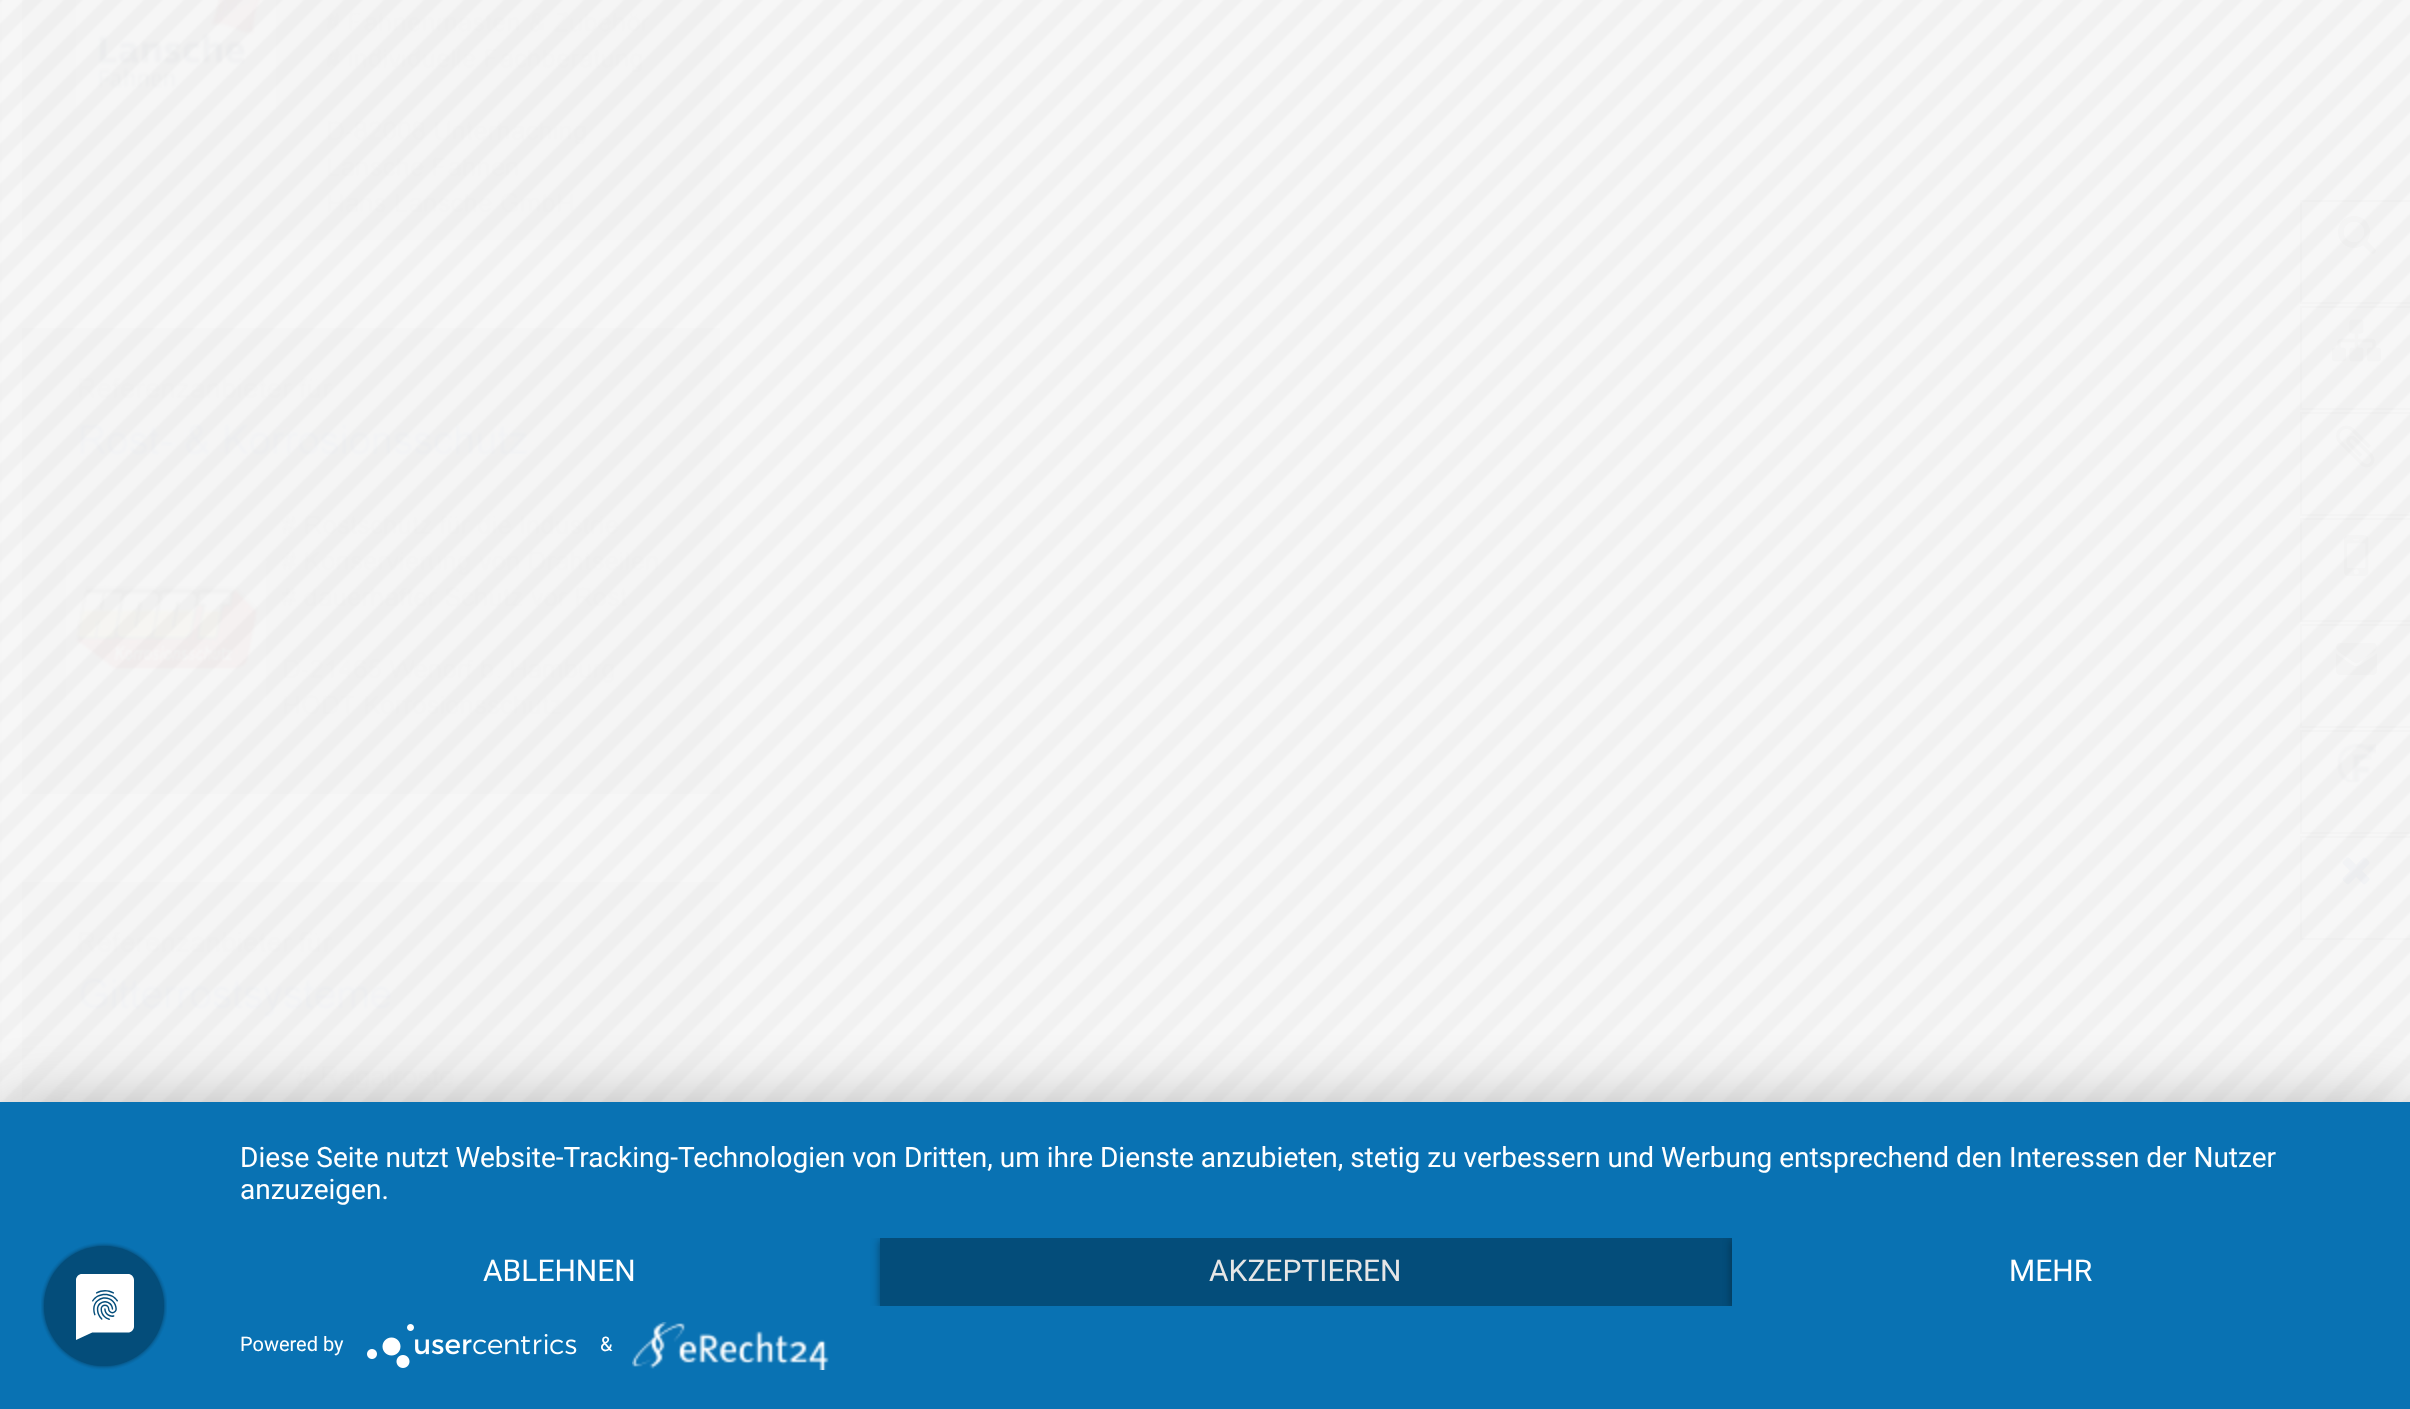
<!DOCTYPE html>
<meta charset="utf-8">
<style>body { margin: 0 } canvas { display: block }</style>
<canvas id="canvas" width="2410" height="1409"></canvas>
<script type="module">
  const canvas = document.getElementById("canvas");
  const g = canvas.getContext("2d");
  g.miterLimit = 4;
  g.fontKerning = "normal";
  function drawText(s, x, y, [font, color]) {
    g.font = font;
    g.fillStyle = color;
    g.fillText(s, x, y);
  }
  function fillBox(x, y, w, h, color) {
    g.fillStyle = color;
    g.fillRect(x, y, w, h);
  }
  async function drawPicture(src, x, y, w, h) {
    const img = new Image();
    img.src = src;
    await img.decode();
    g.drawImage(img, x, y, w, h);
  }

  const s1 = ["28px Roboto", "#FFFFFF"];
  const s2 = ["30px Roboto", "#FFFFFF"];
  const s3 = ["30px Roboto", "#E6E6E6"];
  const s4 = ["20px Roboto", "#FFFFFF"];

  fillBox(0, 0, 2410, 1409, "#FFFFFF");
  g.strokeStyle = "rgba(241, 241, 241, 0.5)";
  g.lineWidth = 2;
  g.strokeRect(1, -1, 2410, 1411);
  await drawPicture("pic1.png", 22, 0, 698, 240);
  await drawPicture("pic2.png", 22, 328, 698, 466);
  await drawPicture("pic3.png", 22, 882, 698, 220);
  g.strokeStyle = "#EDEDED";
  g.strokeRect(2301, 201, 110, 102);
  await drawPicture("pic4.png", 2338, 216, 38, 38);
  g.strokeRect(2301, 307, 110, 102);
  await drawPicture("pic5.png", 2332, 319, 49, 43);
  g.strokeRect(2301, 413, 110, 102);
  await drawPicture("pic6.png", 2336, 425, 39, 43);
  g.strokeRect(2301, 519, 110, 102);
  await drawPicture("pic7.png", 2344, 535, 25, 41);
  g.strokeRect(2301, 625, 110, 102);
  await drawPicture("pic8.png", 2336, 642, 41, 33);
  g.strokeRect(2301, 731, 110, 102);
  await drawPicture("pic9.png", 2337, 743, 39, 40);
  g.strokeRect(2301, 837, 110, 102);
  await drawPicture("pic10.png", 2342, 857, 28, 28);
  await drawPicture("pic11.png", 0, 0, 2410, 1102);
  g.fillStyle = "rgba(0, 0, 0, 0.3)";
  g.filter = "blur(36px)";
  g.beginPath();
  g.rect(0, 1114, 2410, 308);
  g.fill();
  g.filter = "none";
  fillBox(0, 1102, 2410, 307, "#0972B3");
  await drawPicture("pic12.png", 41, 1242, 126, 128);
  drawText("Diese Seite nutzt Website-Tracking-Technologien von Dritten, um ihre Dienste anzubieten, stetig zu verbessern und Werbung entsprechend den Interessen der Nutzer", 240, 1167, s1);
  drawText("anzuzeigen.", 240, 1199, s1);
  drawText("ABLEHNEN", 483, 1281, s2);
  g.save();
  g.beginPath();
  g.rect(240, 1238, 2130, 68);
  g.clip();
  g.fillStyle = "rgba(0, 0, 0, 0.4)";
  g.filter = "blur(4px)";
  g.beginPath();
  g.rect(880, 1240, 852, 68);
  g.fill();
  g.filter = "none";
  g.restore();
  fillBox(880, 1238, 852, 68, "#044D7A");
  drawText("AKZEPTIEREN", 1209, 1281, s3);
  g.save();
  g.beginPath();
  g.rect(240, 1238, 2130, 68);
  g.clip();
  g.fillStyle = "rgba(0, 0, 0, 0.4)";
  g.filter = "blur(4px)";
  g.beginPath();
  g.rect(1732, 1240, 638, 68);
  g.fill();
  g.filter = "none";
  g.restore();
  fillBox(1732, 1238, 638, 68, "#0972B3");
  drawText("MEHR", 2009, 1281, s2);
  drawText("Powered by", 240, 1351, s4);
  await drawPicture("pic13.png", 367, 1324, 210, 44);
  drawText("&", 600, 1351, s4);
  await drawPicture("pic14.png", 632, 1322, 197, 48);
</script>
